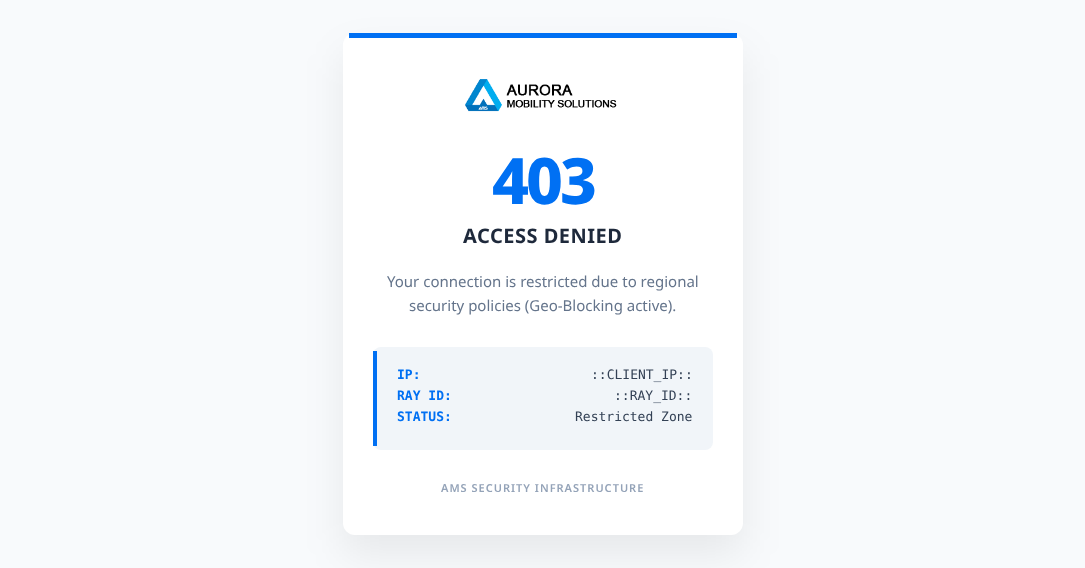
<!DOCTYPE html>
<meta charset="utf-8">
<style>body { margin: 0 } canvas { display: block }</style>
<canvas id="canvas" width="1085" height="568"></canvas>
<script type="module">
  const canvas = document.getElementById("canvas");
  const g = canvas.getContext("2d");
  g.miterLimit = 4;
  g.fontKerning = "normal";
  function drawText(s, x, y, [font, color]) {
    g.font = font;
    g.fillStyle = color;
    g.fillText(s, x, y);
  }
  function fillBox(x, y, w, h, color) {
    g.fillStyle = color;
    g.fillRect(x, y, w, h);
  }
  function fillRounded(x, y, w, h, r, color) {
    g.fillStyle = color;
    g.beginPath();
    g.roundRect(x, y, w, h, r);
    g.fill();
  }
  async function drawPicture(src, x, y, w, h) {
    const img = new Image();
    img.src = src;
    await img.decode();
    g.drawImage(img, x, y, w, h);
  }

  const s1 = ["800 64px Noto Sans", "#0070F3"];
  const s2 = ["bold 20px Noto Sans", "#1E293B"];
  const s3 = ["15px Noto Sans", "#64748B"];
  const s4 = ["bold 13px DejaVu Sans Mono", "#0070F3"];
  const s5 = ["13px DejaVu Sans Mono", "#334155"];
  const s6 = ["600 11px Noto Sans", "#94A3B8"];

  fillBox(0, 0, 1085, 568, "#F8FAFC");
  g.fillStyle = "rgba(0, 0, 0, 0.07)";
  g.filter = "blur(20px)";
  g.beginPath();
  g.roundRect(343, 53, 400, 502, 12);
  g.fill();
  g.filter = "none";
  fillRounded(343, 33, 400, 502, 12, "#FFFFFF");
  fillBox(349, 33, 388, 5, "#0070F3");
  await drawPicture("pic1.png", 465, 79, 152, 33);
  g.letterSpacing = "-3px";
  drawText("403", 492, 204, s1);
  g.letterSpacing = "0.5px";
  drawText("ACCESS DENIED", 463, 243, s2);
  g.letterSpacing = "0px";
  drawText("Your connection is restricted due to regional", 387, 287, s3);
  drawText("security policies (Geo-Blocking active).", 409, 311, s3);
  fillRounded(373, 347, 340, 103, 8, "#F1F5F9");
  fillBox(373, 351, 4, 95, "#0070F3");
  drawText("IP:", 397, 379, s4);
  drawText("::CLIENT_IP::", 591, 379, s5);
  drawText("RAY ID:", 397, 400, s4);
  drawText("::RAY_ID::", 614, 400, s5);
  drawText("STATUS:", 397, 421, s4);
  drawText("Restricted Zone", 575, 421, s5);
  g.letterSpacing = "1px";
  drawText("AMS SECURITY INFRASTRUCTURE", 441, 492, s6);
</script>
